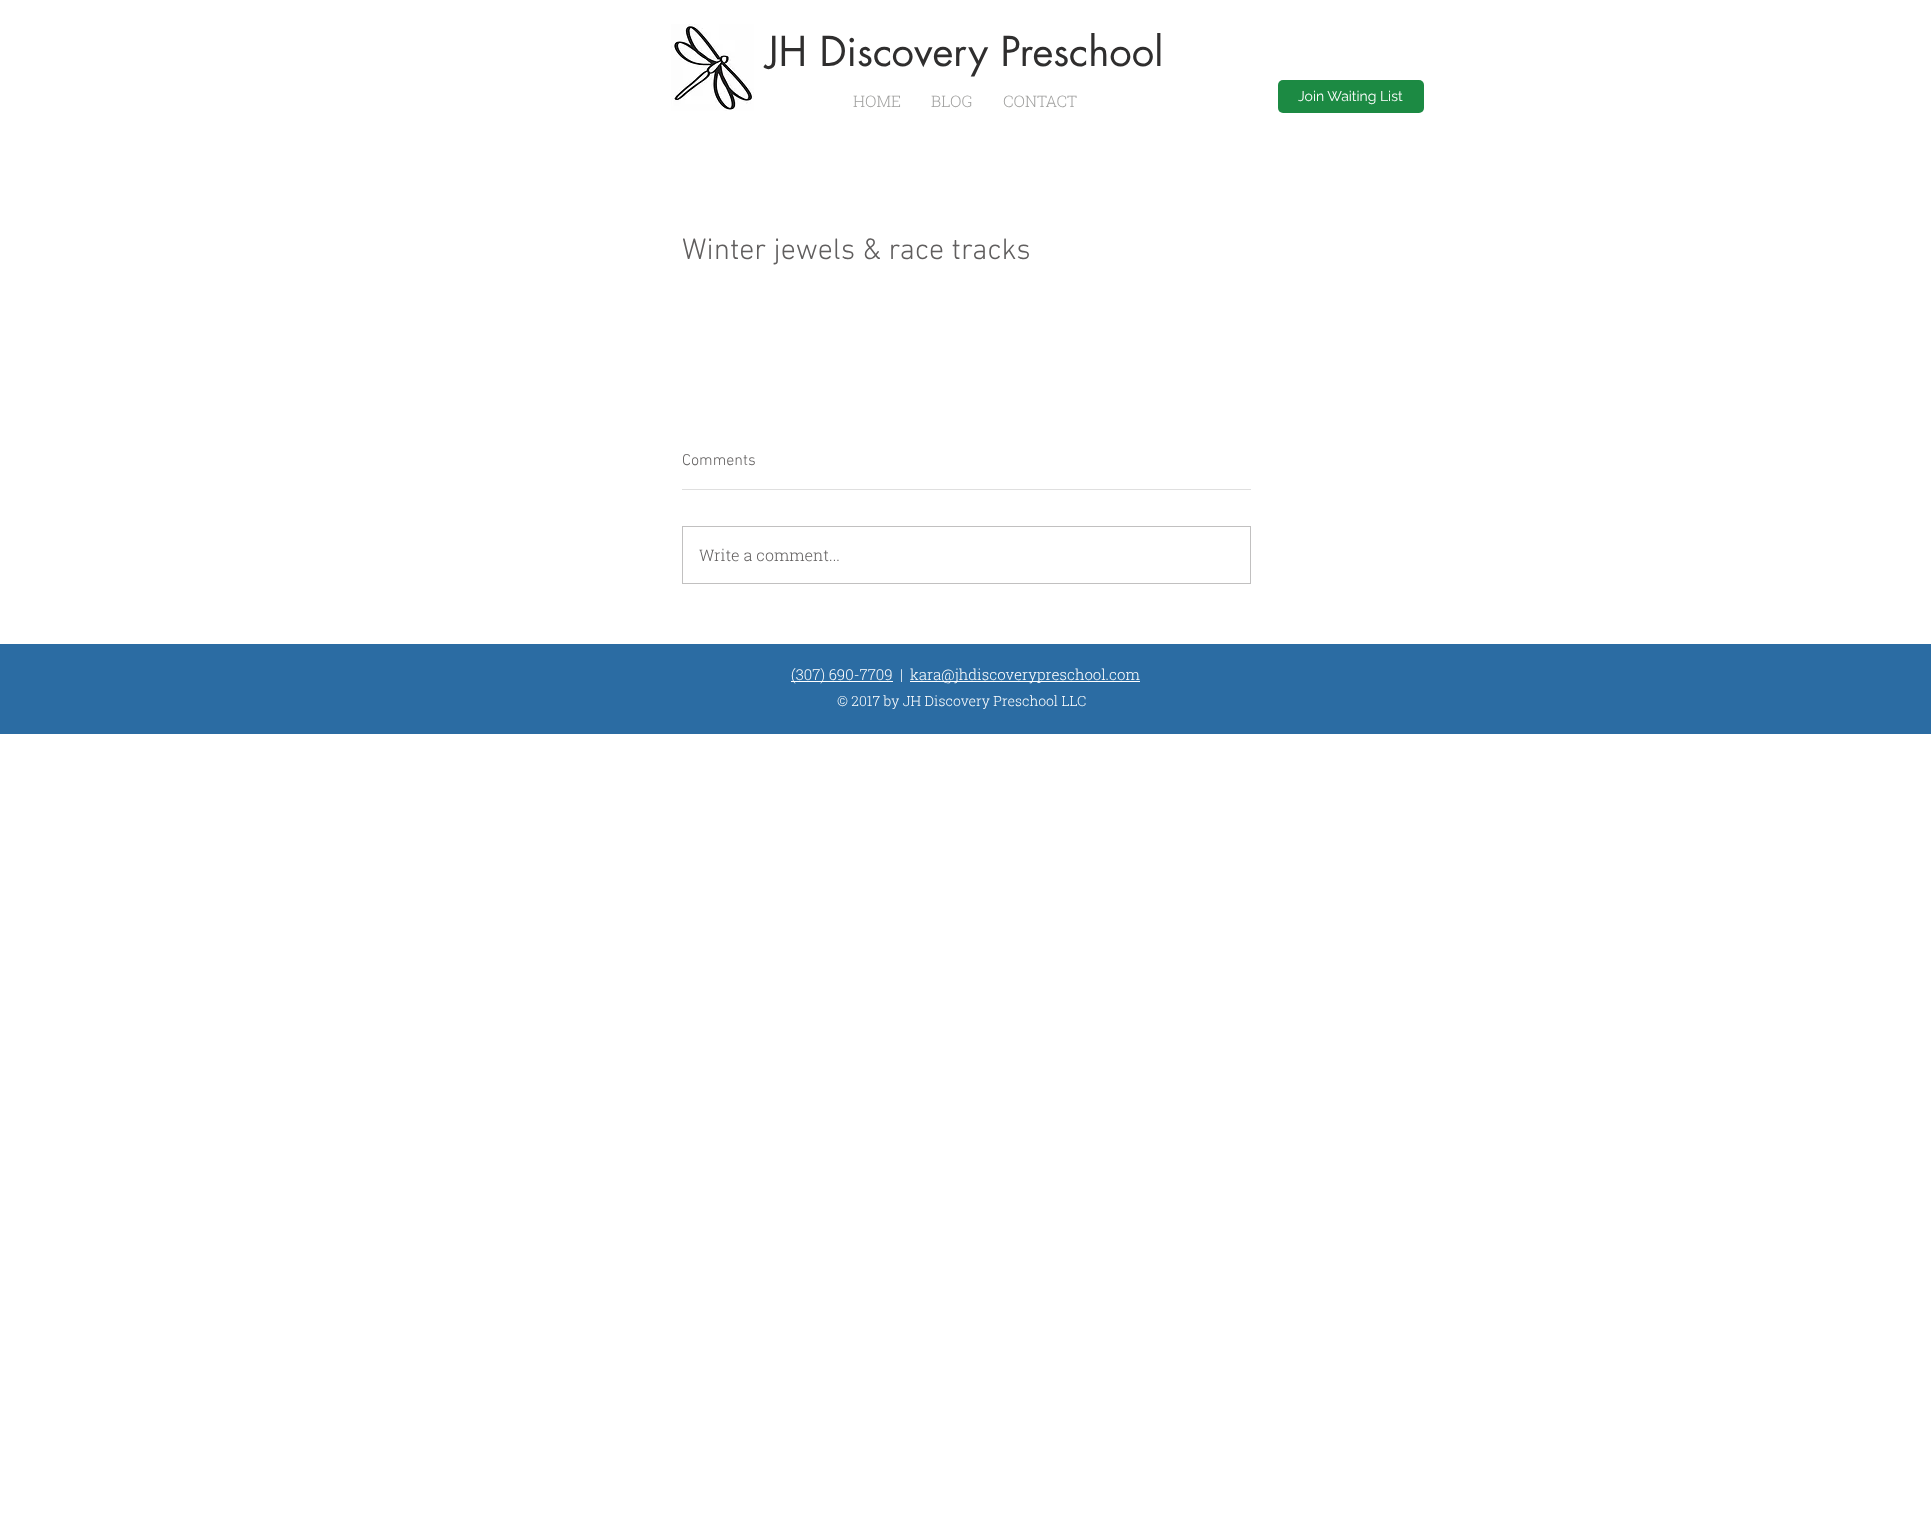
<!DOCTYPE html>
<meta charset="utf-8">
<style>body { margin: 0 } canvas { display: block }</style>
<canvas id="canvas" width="1931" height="1517"></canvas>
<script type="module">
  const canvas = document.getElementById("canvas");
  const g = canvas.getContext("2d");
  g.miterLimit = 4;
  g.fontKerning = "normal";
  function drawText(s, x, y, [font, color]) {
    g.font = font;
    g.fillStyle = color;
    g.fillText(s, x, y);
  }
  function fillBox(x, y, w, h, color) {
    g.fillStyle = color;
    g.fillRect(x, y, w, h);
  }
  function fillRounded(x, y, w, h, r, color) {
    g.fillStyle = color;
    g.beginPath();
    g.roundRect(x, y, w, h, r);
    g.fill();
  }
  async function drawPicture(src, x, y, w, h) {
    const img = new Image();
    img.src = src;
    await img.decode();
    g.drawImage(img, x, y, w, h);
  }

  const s1 = ["40px futura", "#2F2E2E"];
  const s2 = ["300 16px Roboto Slab", "#A0A09F"];
  const s3 = ["14px Raleway", "#FFFFFF"];
  const s4 = ["300 30px 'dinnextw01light'", "#605E5E"];
  const s5 = ["300 16px 'dinnextw01light'", "#605E5E"];
  const s6 = ["300 16px Roboto Slab", "#605E5E"];
  const s7 = ["300 15px Roboto Slab", "#FFFFFF"];
  const s8 = ["300 14px Roboto Slab", "#FFFFFF"];

  fillBox(0, 0, 1931, 1517, "#FFFFFF");
  await drawPicture("pic1.png", 671, 24, 83, 87);
  drawText("JH Discovery Preschool", 766, 66, s1);
  drawText("HOME", 853, 107, s2);
  drawText("BLOG", 931, 107, s2);
  drawText("CONTACT", 1003, 107, s2);
  fillRounded(1278, 80, 146, 33, 5, "#1C8A43");
  drawText("Join Waiting List", 1298, 101, s3);
  drawText("Winter jewels & race tracks", 682, 259, s4);
  drawText("Comments", 682, 465, s5);
  fillBox(682, 489, 569, 1, "#DFDFDF");
  g.strokeStyle = "#C1C0C0";
  g.strokeRect(682.5, 526.5, 568, 57);
  drawText("Write a comment...", 699, 561, s6);
  fillBox(0, 644, 1931, 90, "#2B6CA3");
  fillBox(791, 681, 102, 1, "#FFFFFF");
  drawText("(307) 690-7709", 791, 680, s7);
  drawText("|", 900, 680, s7);
  fillBox(910, 681, 230, 1, "#FFFFFF");
  drawText("kara@jhdiscoverypreschool.com", 910, 680, s7);
  drawText("© 2017 by JH Discovery Preschool LLC", 837, 706, s8);
</script>
